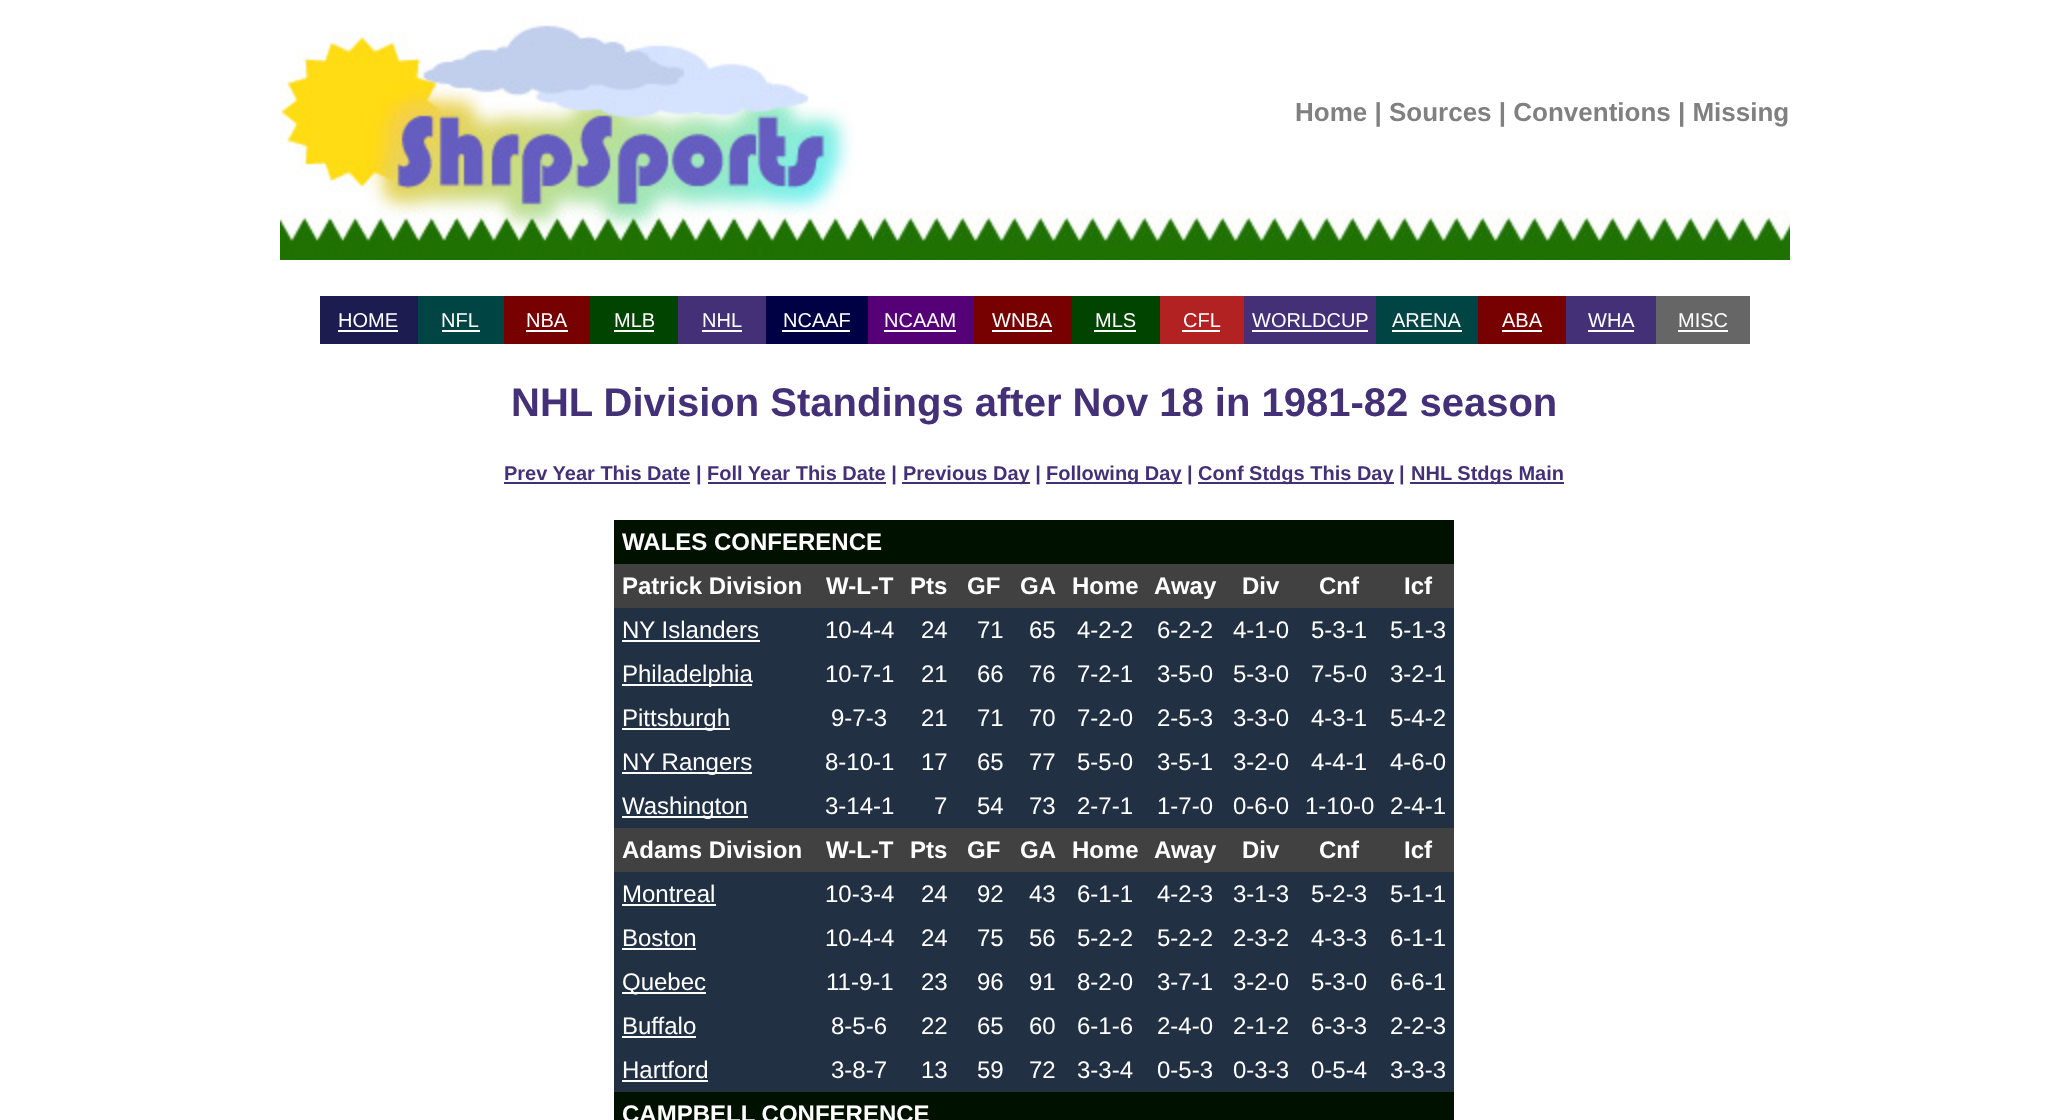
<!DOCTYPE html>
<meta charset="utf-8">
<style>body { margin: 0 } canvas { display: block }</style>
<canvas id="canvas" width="2067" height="1120"></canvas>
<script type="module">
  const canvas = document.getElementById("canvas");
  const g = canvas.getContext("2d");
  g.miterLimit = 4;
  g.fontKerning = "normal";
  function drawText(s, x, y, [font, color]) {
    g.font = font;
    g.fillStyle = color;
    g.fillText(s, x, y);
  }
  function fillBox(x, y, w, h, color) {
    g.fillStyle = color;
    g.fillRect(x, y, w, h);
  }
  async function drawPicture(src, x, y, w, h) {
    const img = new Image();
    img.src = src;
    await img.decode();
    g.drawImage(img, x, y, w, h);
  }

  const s1 = ["bold 26px Liberation Sans", "#808080"];
  const s2 = ["20px Liberation Sans", "#FFFFFF"];
  const s3 = ["bold 40px Liberation Sans", "#443077"];
  const s4 = ["bold 20px Liberation Sans", "#443077"];
  const s5 = ["bold 24px Liberation Sans", "#FFFFFF"];
  const s6 = ["24px Liberation Sans", "#FFFFFF"];

  fillBox(0, 0, 2067, 1120, "#FFFFFF");
  await drawPicture("pic1.png", 280, 16, 592, 244);
  drawText("Home | Sources | Conventions | Missing", 1295, 121, s1);
  await drawPicture("pic2.png", 872, 210, 918, 50);
  await drawPicture("pic3.png", 872, 235, 26, 6);
  fillBox(320, 296, 98, 48, "#1C1C51");
  drawText("HOME", 338, 327, s2);
  fillBox(338, 330, 60, 2, "#FFFFFF");
  fillBox(418, 296, 86, 48, "#004444");
  drawText("NFL", 441, 327, s2);
  fillBox(442, 330, 38, 2, "#FFFFFF");
  fillBox(504, 296, 86, 48, "#770000");
  drawText("NBA", 526, 327, s2);
  fillBox(526, 330, 42, 2, "#FFFFFF");
  fillBox(590, 296, 88, 48, "#004400");
  drawText("MLB", 614, 327, s2);
  fillBox(614, 330, 40, 2, "#FFFFFF");
  fillBox(678, 296, 88, 48, "#443077");
  drawText("NHL", 702, 327, s2);
  fillBox(702, 330, 40, 2, "#FFFFFF");
  fillBox(766, 296, 102, 48, "#000044");
  drawText("NCAAF", 783, 327, s2);
  fillBox(782, 330, 68, 2, "#FFFFFF");
  fillBox(868, 296, 106, 48, "#550077");
  drawText("NCAAM", 884, 327, s2);
  fillBox(884, 330, 72, 2, "#FFFFFF");
  fillBox(974, 296, 98, 48, "#770000");
  drawText("WNBA", 992, 327, s2);
  fillBox(992, 330, 60, 2, "#FFFFFF");
  fillBox(1072, 296, 88, 48, "#004400");
  drawText("MLS", 1095, 327, s2);
  fillBox(1094, 330, 42, 2, "#FFFFFF");
  fillBox(1160, 296, 84, 48, "#B22222");
  drawText("CFL", 1183, 327, s2);
  fillBox(1182, 330, 38, 2, "#FFFFFF");
  fillBox(1244, 296, 132, 48, "#443077");
  drawText("WORLDCUP", 1252, 327, s2);
  fillBox(1252, 330, 116, 2, "#FFFFFF");
  fillBox(1376, 296, 102, 48, "#004444");
  drawText("ARENA", 1392, 327, s2);
  fillBox(1392, 330, 70, 2, "#FFFFFF");
  fillBox(1478, 296, 88, 48, "#770000");
  drawText("ABA", 1502, 327, s2);
  fillBox(1502, 330, 40, 2, "#FFFFFF");
  fillBox(1566, 296, 90, 48, "#443077");
  drawText("WHA", 1588, 327, s2);
  fillBox(1588, 330, 46, 2, "#FFFFFF");
  fillBox(1656, 296, 94, 48, "#666666");
  drawText("MISC", 1678, 327, s2);
  fillBox(1678, 330, 50, 2, "#FFFFFF");
  drawText("NHL Division Standings after Nov 18 in 1981-82 season", 511, 416, s3);
  fillBox(504, 482, 186, 2, "#443077");
  drawText("Prev Year This Date | Foll Year This Date |", 504, 480, s4);
  fillBox(902, 482, 128, 2, "#443077");
  drawText("Previous Day |", 903, 480, s4);
  fillBox(1046, 482, 136, 2, "#443077");
  drawText("Following Day |", 1046, 480, s4);
  fillBox(1198, 482, 196, 2, "#443077");
  drawText("Conf Stdgs This Day |", 1198, 480, s4);
  fillBox(1410, 482, 154, 2, "#443077");
  drawText("NHL Stdgs Main", 1411, 480, s4);
  fillBox(708, 482, 178, 2, "#443077");
  fillBox(614, 520, 840, 44, "#001100");
  drawText("WALES CONFERENCE", 622, 550, s5);
  fillBox(614, 564, 840, 44, "#414141");
  drawText("Patrick Division", 622, 594, s5);
  drawText("W-L-T", 826, 594, s5);
  drawText("Pts", 910, 594, s5);
  drawText("GF", 967, 594, s5);
  drawText("GA", 1020, 594, s5);
  drawText("Home", 1072, 594, s5);
  drawText("Away", 1154, 594, s5);
  drawText("Div", 1242, 594, s5);
  drawText("Cnf", 1319, 594, s5);
  drawText("Icf", 1404, 594, s5);
  fillBox(614, 608, 840, 220, "#223044");
  drawText("NY Islanders", 622, 638, s6);
  fillBox(622, 640, 138, 2, "#FFFFFF");
  drawText("10-4-4", 825, 638, s6);
  drawText("24", 921, 638, s6);
  drawText("71", 977, 638, s6);
  drawText("65", 1029, 638, s6);
  drawText("4-2-2", 1077, 638, s6);
  drawText("6-2-2", 1157, 638, s6);
  drawText("4-1-0", 1233, 638, s6);
  drawText("5-3-1", 1311, 638, s6);
  drawText("5-1-3", 1390, 638, s6);
  fillBox(622, 684, 130, 2, "#FFFFFF");
  drawText("Philadelphia", 622, 682, s6);
  drawText("10-7-1", 825, 682, s6);
  drawText("21", 921, 682, s6);
  drawText("66", 977, 682, s6);
  drawText("76", 1029, 682, s6);
  drawText("7-2-1", 1077, 682, s6);
  drawText("3-5-0", 1157, 682, s6);
  drawText("5-3-0", 1233, 682, s6);
  drawText("7-5-0", 1311, 682, s6);
  drawText("3-2-1", 1390, 682, s6);
  fillBox(622, 728, 108, 2, "#FFFFFF");
  drawText("Pittsburgh", 622, 726, s6);
  drawText("9-7-3", 831, 726, s6);
  drawText("21", 921, 726, s6);
  drawText("71", 977, 726, s6);
  drawText("70", 1029, 726, s6);
  drawText("7-2-0", 1077, 726, s6);
  drawText("2-5-3", 1157, 726, s6);
  drawText("3-3-0", 1233, 726, s6);
  drawText("4-3-1", 1311, 726, s6);
  drawText("5-4-2", 1390, 726, s6);
  fillBox(622, 772, 130, 2, "#FFFFFF");
  drawText("NY Rangers", 622, 770, s6);
  drawText("8-10-1", 825, 770, s6);
  drawText("17", 921, 770, s6);
  drawText("65", 977, 770, s6);
  drawText("77", 1029, 770, s6);
  drawText("5-5-0", 1077, 770, s6);
  drawText("3-5-1", 1157, 770, s6);
  drawText("3-2-0", 1233, 770, s6);
  drawText("4-4-1", 1311, 770, s6);
  drawText("4-6-0", 1390, 770, s6);
  fillBox(622, 816, 126, 2, "#FFFFFF");
  drawText("Washington", 622, 814, s6);
  drawText("3-14-1", 825, 814, s6);
  drawText("7", 934, 814, s6);
  drawText("54", 977, 814, s6);
  drawText("73", 1029, 814, s6);
  drawText("2-7-1", 1077, 814, s6);
  drawText("1-7-0", 1157, 814, s6);
  drawText("0-6-0", 1233, 814, s6);
  drawText("1-10-0", 1305, 814, s6);
  drawText("2-4-1", 1390, 814, s6);
  fillBox(614, 828, 840, 44, "#414141");
  drawText("Adams Division", 622, 858, s5);
  drawText("W-L-T", 826, 858, s5);
  drawText("Pts", 910, 858, s5);
  drawText("GF", 967, 858, s5);
  drawText("GA", 1020, 858, s5);
  drawText("Home", 1072, 858, s5);
  drawText("Away", 1154, 858, s5);
  drawText("Div", 1242, 858, s5);
  drawText("Cnf", 1319, 858, s5);
  drawText("Icf", 1404, 858, s5);
  fillBox(614, 872, 840, 220, "#223044");
  drawText("Montreal", 622, 902, s6);
  fillBox(622, 904, 94, 2, "#FFFFFF");
  drawText("10-3-4", 825, 902, s6);
  drawText("24", 921, 902, s6);
  drawText("92", 977, 902, s6);
  drawText("43", 1029, 902, s6);
  drawText("6-1-1", 1077, 902, s6);
  drawText("4-2-3", 1157, 902, s6);
  drawText("3-1-3", 1233, 902, s6);
  drawText("5-2-3", 1311, 902, s6);
  drawText("5-1-1", 1390, 902, s6);
  drawText("Boston", 622, 946, s6);
  fillBox(622, 948, 74, 2, "#FFFFFF");
  drawText("10-4-4", 825, 946, s6);
  drawText("24", 921, 946, s6);
  drawText("75", 977, 946, s6);
  drawText("56", 1029, 946, s6);
  drawText("5-2-2", 1077, 946, s6);
  drawText("5-2-2", 1157, 946, s6);
  drawText("2-3-2", 1233, 946, s6);
  drawText("4-3-3", 1311, 946, s6);
  drawText("6-1-1", 1390, 946, s6);
  fillBox(622, 992, 84, 2, "#FFFFFF");
  drawText("Quebec", 622, 990, s6);
  drawText("11-9-1", 826, 990, s6);
  drawText("23", 921, 990, s6);
  drawText("96", 977, 990, s6);
  drawText("91", 1029, 990, s6);
  drawText("8-2-0", 1077, 990, s6);
  drawText("3-7-1", 1157, 990, s6);
  drawText("3-2-0", 1233, 990, s6);
  drawText("5-3-0", 1311, 990, s6);
  drawText("6-6-1", 1390, 990, s6);
  drawText("Buffalo", 622, 1034, s6);
  fillBox(622, 1036, 74, 2, "#FFFFFF");
  drawText("8-5-6", 831, 1034, s6);
  drawText("22", 921, 1034, s6);
  drawText("65", 977, 1034, s6);
  drawText("60", 1029, 1034, s6);
  drawText("6-1-6", 1077, 1034, s6);
  drawText("2-4-0", 1157, 1034, s6);
  drawText("2-1-2", 1233, 1034, s6);
  drawText("6-3-3", 1311, 1034, s6);
  drawText("2-2-3", 1390, 1034, s6);
  drawText("Hartford", 622, 1078, s6);
  fillBox(622, 1080, 86, 2, "#FFFFFF");
  drawText("3-8-7", 831, 1078, s6);
  drawText("13", 921, 1078, s6);
  drawText("59", 977, 1078, s6);
  drawText("72", 1029, 1078, s6);
  drawText("3-3-4", 1077, 1078, s6);
  drawText("0-5-3", 1157, 1078, s6);
  drawText("0-3-3", 1233, 1078, s6);
  drawText("0-5-4", 1311, 1078, s6);
  drawText("3-3-3", 1390, 1078, s6);
  fillBox(614, 1092, 840, 28, "#001100");
  drawText("CAMPBELL CONFERENCE", 622, 1122, s5);
</script>
